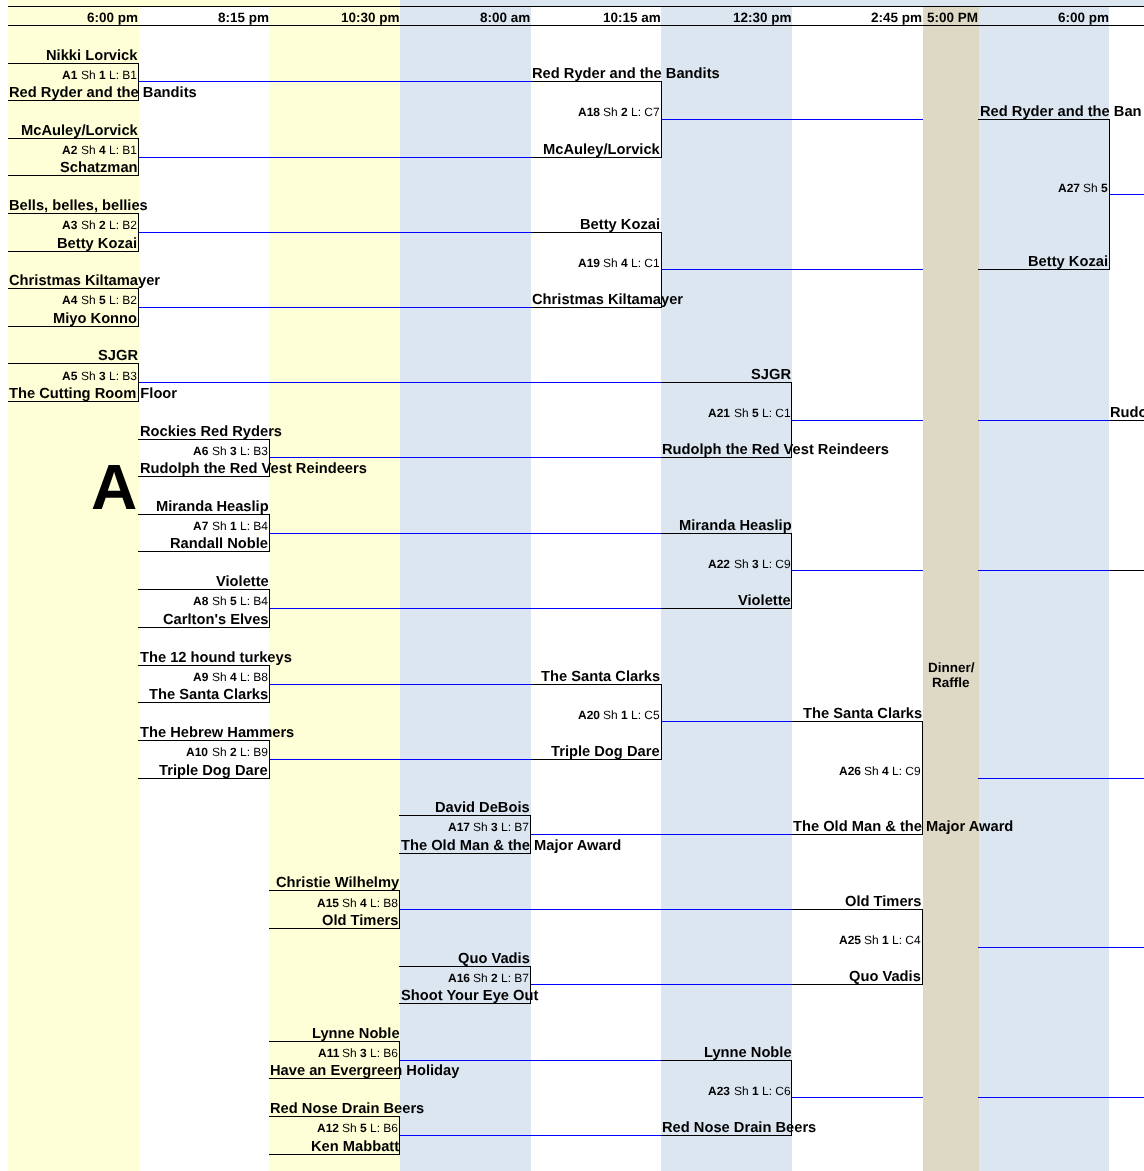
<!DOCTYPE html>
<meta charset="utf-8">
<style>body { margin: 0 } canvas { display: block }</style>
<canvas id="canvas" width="1144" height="1171"></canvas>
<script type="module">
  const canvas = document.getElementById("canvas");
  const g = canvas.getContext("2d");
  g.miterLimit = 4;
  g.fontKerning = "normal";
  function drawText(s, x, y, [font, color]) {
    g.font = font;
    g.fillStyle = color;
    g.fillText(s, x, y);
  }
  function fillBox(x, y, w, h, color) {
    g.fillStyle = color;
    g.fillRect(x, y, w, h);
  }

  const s1 = ["bold 13.5px Liberation Sans", "#000000"];
  const s2 = ["bold 14.7px Liberation Sans", "#000000"];
  const s3 = ["bold 12px Liberation Sans", "#000000"];
  const s4 = ["12px Liberation Sans", "#000000"];
  const s5 = ["bold 64px Liberation Sans", "#000000"];

  fillBox(0, 0, 1144, 1171, "#FFFFFF");
  fillBox(923, 7, 56, 1164, "#DDD9C4");
  fillBox(8, 0, 392, 6, "#FFFFD7");
  fillBox(400, 0, 744, 6, "#DCE6F1");
  fillBox(8, 6, 1136, 1, "#000000");
  fillBox(8, 25, 1136, 1, "#000000");
  fillBox(8, 7, 131, 18, "#FFFFD7");
  drawText("6:00 pm", 87, 22, s1);
  drawText("8:15 pm", 218, 22, s1);
  fillBox(269, 7, 131, 18, "#FFFFD7");
  drawText("10:30 pm", 341, 22, s1);
  fillBox(400, 7, 131, 18, "#DCE6F1");
  drawText("8:00 am", 480, 22, s1);
  drawText("10:15 am", 603, 22, s1);
  fillBox(661, 7, 131, 18, "#DCE6F1");
  drawText("12:30 pm", 733, 22, s1);
  drawText("2:45 pm", 871, 22, s1);
  drawText("5:00 PM", 927, 22, s1);
  fillBox(979, 7, 130, 18, "#DCE6F1");
  drawText("6:00 pm", 1058, 22, s1);
  fillBox(8, 26, 131, 37, "#FFFFD7");
  drawText("Nikki Lorvick", 46, 60, s2);
  fillBox(8, 64, 130, 36, "#FFFFD7");
  fillBox(138, 81, 1, 20, "#000000");
  fillBox(661, 26, 131, 56, "#DCE6F1");
  fillBox(530, 81, 132, 1, "#000000");
  fillBox(138, 81, 393, 1, "#0000FF");
  fillBox(138, 63, 1, 19, "#000000");
  fillBox(8, 63, 131, 1, "#000000");
  drawText("A1", 62, 79, s3);
  drawText("Sh", 81, 79, s4);
  drawText("1", 99, 79, s3);
  drawText("L: B1", 109, 79, s4);
  fillBox(661, 157, 131, 75, "#DCE6F1");
  fillBox(661, 119, 1, 39, "#000000");
  fillBox(661, 119, 262, 1, "#0000FF");
  fillBox(661, 100, 1, 20, "#000000");
  fillBox(661, 81, 1, 20, "#000000");
  drawText("Red Ryder and the Bandits", 532, 78, s2);
  fillBox(8, 100, 131, 1, "#000000");
  drawText("Red Ryder and the Bandits", 9, 97, s2);
  fillBox(269, 82, 131, 75, "#FFFFD7");
  fillBox(400, 82, 131, 75, "#DCE6F1");
  fillBox(662, 82, 130, 37, "#DCE6F1");
  fillBox(8, 101, 131, 37, "#FFFFD7");
  drawText("A18", 578, 116, s3);
  drawText("Sh", 603, 116, s4);
  drawText("2", 621, 116, s3);
  drawText("L: C7", 631, 116, s4);
  fillBox(978, 119, 132, 1, "#000000");
  fillBox(1109, 194, 1, 76, "#000000");
  fillBox(1109, 194, 35, 1, "#0000FF");
  fillBox(1109, 138, 1, 57, "#000000");
  fillBox(1109, 119, 1, 20, "#000000");
  fillBox(979, 26, 130, 93, "#DCE6F1");
  drawText("Red Ryder and the Ban", 980, 116, s2);
  fillBox(530, 157, 132, 1, "#000000");
  fillBox(138, 157, 1, 19, "#000000");
  fillBox(138, 157, 393, 1, "#0000FF");
  fillBox(138, 138, 1, 20, "#000000");
  fillBox(8, 138, 131, 1, "#000000");
  drawText("McAuley/Lorvick", 21, 135, s2);
  fillBox(662, 120, 130, 37, "#DCE6F1");
  fillBox(979, 120, 130, 149, "#DCE6F1");
  fillBox(8, 139, 130, 36, "#FFFFD7");
  drawText("A2", 62, 154, s3);
  drawText("Sh", 81, 154, s4);
  drawText("4", 99, 154, s3);
  drawText("L: B1", 109, 154, s4);
  drawText("McAuley/Lorvick", 543, 154, s2);
  fillBox(8, 175, 131, 1, "#000000");
  drawText("Schatzman", 60, 172, s2);
  fillBox(269, 158, 131, 74, "#FFFFD7");
  fillBox(400, 158, 131, 74, "#DCE6F1");
  fillBox(8, 176, 131, 37, "#FFFFD7");
  drawText("A27", 1058, 192, s3);
  drawText("Sh", 1083, 192, s4);
  drawText("5", 1101, 192, s3);
  drawText("Bells, belles, bellies", 9, 210, s2);
  fillBox(8, 214, 130, 37, "#FFFFD7");
  fillBox(138, 232, 1, 20, "#000000");
  fillBox(530, 232, 132, 1, "#000000");
  fillBox(138, 232, 393, 1, "#0000FF");
  fillBox(138, 213, 1, 20, "#000000");
  fillBox(8, 213, 131, 1, "#000000");
  drawText("A3", 62, 229, s3);
  drawText("Sh", 81, 229, s4);
  drawText("2", 99, 229, s3);
  drawText("L: B2", 109, 229, s4);
  drawText("Betty Kozai", 580, 229, s2);
  fillBox(8, 251, 131, 1, "#000000");
  drawText("Betty Kozai", 57, 248, s2);
  fillBox(269, 233, 131, 74, "#FFFFD7");
  fillBox(400, 233, 131, 74, "#DCE6F1");
  fillBox(661, 307, 131, 75, "#DCE6F1");
  fillBox(661, 269, 1, 39, "#000000");
  fillBox(661, 269, 262, 1, "#0000FF");
  fillBox(661, 251, 1, 19, "#000000");
  fillBox(661, 232, 1, 20, "#000000");
  fillBox(662, 232, 130, 37, "#DCE6F1");
  fillBox(8, 252, 131, 36, "#FFFFD7");
  drawText("A19", 578, 267, s3);
  drawText("Sh", 603, 267, s4);
  drawText("4", 621, 267, s3);
  drawText("L: C1", 631, 267, s4);
  fillBox(978, 269, 132, 1, "#000000");
  drawText("Betty Kozai", 1028, 266, s2);
  fillBox(530, 307, 132, 1, "#000000");
  fillBox(138, 307, 1, 20, "#000000");
  fillBox(138, 307, 393, 1, "#0000FF");
  fillBox(138, 288, 1, 20, "#000000");
  fillBox(8, 288, 131, 1, "#000000");
  drawText("Christmas Kiltamayer", 9, 285, s2);
  fillBox(662, 270, 130, 37, "#DCE6F1");
  fillBox(979, 270, 130, 150, "#DCE6F1");
  fillBox(8, 289, 130, 37, "#FFFFD7");
  drawText("A4", 62, 304, s3);
  drawText("Sh", 81, 304, s4);
  drawText("5", 99, 304, s3);
  drawText("L: B2", 109, 304, s4);
  drawText("Christmas Kiltamayer", 532, 304, s2);
  fillBox(8, 326, 131, 1, "#000000");
  drawText("Miyo Konno", 53, 323, s2);
  fillBox(269, 308, 131, 74, "#FFFFD7");
  fillBox(400, 308, 131, 74, "#DCE6F1");
  fillBox(8, 327, 131, 36, "#FFFFD7");
  drawText("SJGR", 98, 360, s2);
  fillBox(8, 364, 130, 37, "#FFFFD7");
  fillBox(138, 382, 1, 20, "#000000");
  fillBox(661, 382, 131, 1, "#000000");
  fillBox(138, 382, 524, 1, "#0000FF");
  fillBox(138, 363, 1, 20, "#000000");
  fillBox(8, 363, 131, 1, "#000000");
  drawText("A5", 62, 380, s3);
  drawText("Sh", 81, 380, s4);
  drawText("3", 99, 380, s3);
  drawText("L: B3", 109, 380, s4);
  drawText("SJGR", 751, 379, s2);
  fillBox(8, 401, 131, 1, "#000000");
  drawText("The Cutting Room Floor", 9, 398, s2);
  fillBox(269, 383, 131, 56, "#FFFFD7");
  fillBox(400, 383, 131, 74, "#DCE6F1");
  fillBox(661, 383, 130, 74, "#DCE6F1");
  fillBox(791, 420, 1, 38, "#000000");
  fillBox(791, 420, 132, 1, "#0000FF");
  fillBox(791, 401, 1, 20, "#000000");
  fillBox(791, 382, 1, 20, "#000000");
  drawText("A21", 708, 417, s3);
  drawText("Sh", 734, 417, s4);
  drawText("5", 752, 417, s3);
  drawText("L: C1", 762, 417, s4);
  drawText("Rudo", 1110, 417, s2);
  fillBox(1109, 420, 35, 1, "#000000");
  fillBox(978, 420, 132, 1, "#0000FF");
  fillBox(8, 402, 131, 769, "#FFFFD7");
  drawText("A", 91, 509, s5);
  fillBox(661, 457, 131, 1, "#000000");
  fillBox(269, 457, 1, 20, "#000000");
  fillBox(269, 457, 393, 1, "#0000FF");
  fillBox(269, 439, 1, 19, "#000000");
  fillBox(138, 439, 132, 1, "#000000");
  fillBox(270, 439, 130, 18, "#FFFFD7");
  drawText("Rockies Red Ryders", 140, 436, s2);
  fillBox(979, 421, 130, 149, "#DCE6F1");
  drawText("A6", 193, 455, s3);
  drawText("Sh", 212, 455, s4);
  drawText("3", 230, 455, s3);
  drawText("L: B3", 240, 455, s4);
  drawText("Rudolph the Red Vest Reindeers", 662, 454, s2);
  fillBox(270, 458, 130, 19, "#FFFFD7");
  fillBox(400, 458, 131, 75, "#DCE6F1");
  fillBox(661, 458, 131, 75, "#DCE6F1");
  fillBox(138, 476, 132, 1, "#000000");
  drawText("Rudolph the Red Vest Reindeers", 140, 473, s2);
  fillBox(269, 533, 1, 19, "#000000");
  fillBox(661, 533, 131, 1, "#000000");
  fillBox(269, 533, 393, 1, "#0000FF");
  fillBox(269, 514, 1, 20, "#000000");
  fillBox(138, 514, 132, 1, "#000000");
  drawText("Miranda Heaslip", 156, 511, s2);
  fillBox(269, 477, 131, 37, "#FFFFD7");
  drawText("A7", 193, 530, s3);
  drawText("Sh", 212, 530, s4);
  drawText("1", 230, 530, s3);
  drawText("L: B4", 240, 530, s4);
  fillBox(270, 514, 130, 19, "#FFFFD7");
  drawText("Miranda Heaslip", 679, 530, s2);
  fillBox(138, 551, 132, 1, "#000000");
  drawText("Randall Noble", 170, 548, s2);
  fillBox(270, 534, 130, 18, "#FFFFD7");
  fillBox(400, 534, 131, 74, "#DCE6F1");
  fillBox(661, 534, 130, 74, "#DCE6F1");
  fillBox(791, 570, 1, 39, "#000000");
  fillBox(791, 570, 132, 1, "#0000FF");
  fillBox(791, 551, 1, 20, "#000000");
  fillBox(791, 533, 1, 19, "#000000");
  fillBox(269, 552, 131, 37, "#FFFFD7");
  drawText("A22", 708, 568, s3);
  drawText("Sh", 734, 568, s4);
  drawText("3", 752, 568, s3);
  drawText("L: C9", 762, 568, s4);
  fillBox(1109, 570, 35, 1, "#000000");
  fillBox(978, 570, 132, 1, "#0000FF");
  drawText("Violette", 216, 586, s2);
  fillBox(979, 571, 130, 207, "#DCE6F1");
  fillBox(661, 608, 131, 1, "#000000");
  fillBox(269, 627, 131, 38, "#FFFFD7");
  fillBox(269, 608, 1, 20, "#000000");
  fillBox(269, 608, 393, 1, "#0000FF");
  fillBox(269, 589, 1, 20, "#000000");
  fillBox(138, 589, 132, 1, "#000000");
  drawText("A8", 193, 605, s3);
  drawText("Sh", 212, 605, s4);
  drawText("5", 230, 605, s3);
  drawText("L: B4", 240, 605, s4);
  fillBox(270, 589, 130, 19, "#FFFFD7");
  drawText("Violette", 738, 605, s2);
  fillBox(138, 627, 132, 1, "#000000");
  drawText("Carlton's Elves", 163, 624, s2);
  fillBox(270, 609, 130, 18, "#FFFFD7");
  fillBox(400, 609, 131, 75, "#DCE6F1");
  fillBox(661, 609, 131, 75, "#DCE6F1");
  fillBox(269, 684, 1, 19, "#000000");
  fillBox(530, 684, 132, 1, "#000000");
  fillBox(269, 684, 262, 1, "#0000FF");
  fillBox(269, 665, 1, 20, "#000000");
  fillBox(138, 665, 132, 1, "#000000");
  fillBox(270, 665, 130, 19, "#FFFFD7");
  drawText("The 12 hound turkeys", 140, 662, s2);
  drawText("A9", 193, 681, s3);
  drawText("Sh", 212, 681, s4);
  drawText("4", 230, 681, s3);
  drawText("L: B8", 240, 681, s4);
  drawText("The Santa Clarks", 541, 681, s2);
  fillBox(269, 26, 131, 55, "#FFFFD7");
  fillBox(400, 26, 131, 55, "#DCE6F1");
  drawText("Dinner/", 928, 672, s1);
  drawText("Raffle", 932, 687, s1);
  fillBox(138, 702, 132, 1, "#000000");
  drawText("The Santa Clarks", 149, 699, s2);
  fillBox(270, 685, 130, 18, "#FFFFD7");
  fillBox(400, 685, 131, 74, "#DCE6F1");
  fillBox(791, 721, 132, 1, "#000000");
  fillBox(661, 759, 131, 75, "#DCE6F1");
  fillBox(661, 721, 1, 39, "#000000");
  fillBox(661, 721, 131, 1, "#0000FF");
  fillBox(661, 702, 1, 20, "#000000");
  fillBox(661, 684, 1, 19, "#000000");
  fillBox(662, 684, 130, 37, "#DCE6F1");
  fillBox(269, 703, 131, 38, "#FFFFD7");
  drawText("A20", 578, 719, s3);
  drawText("Sh", 603, 719, s4);
  drawText("1", 621, 719, s3);
  drawText("L: C5", 631, 719, s4);
  drawText("The Santa Clarks", 803, 718, s2);
  drawText("The Hebrew Hammers", 140, 737, s2);
  fillBox(662, 722, 130, 37, "#DCE6F1");
  fillBox(922, 740, 1, 95, "#000000");
  fillBox(922, 721, 1, 20, "#000000");
  fillBox(530, 759, 132, 1, "#000000");
  fillBox(269, 778, 131, 112, "#FFFFD7");
  fillBox(269, 759, 1, 20, "#000000");
  fillBox(269, 759, 262, 1, "#0000FF");
  fillBox(269, 740, 1, 20, "#000000");
  fillBox(138, 740, 132, 1, "#000000");
  drawText("A10", 186, 756, s3);
  drawText("Sh", 212, 756, s4);
  drawText("2", 230, 756, s3);
  drawText("L: B9", 240, 756, s4);
  fillBox(270, 741, 130, 18, "#FFFFD7");
  drawText("Triple Dog Dare", 551, 756, s2);
  fillBox(138, 778, 132, 1, "#000000");
  drawText("Triple Dog Dare", 159, 775, s2);
  fillBox(270, 760, 130, 18, "#FFFFD7");
  fillBox(400, 760, 131, 55, "#DCE6F1");
  drawText("A26", 839, 775, s3);
  drawText("Sh", 864, 775, s4);
  drawText("4", 882, 775, s3);
  drawText("L: C9", 892, 775, s4);
  fillBox(978, 778, 166, 1, "#0000FF");
  fillBox(979, 779, 130, 168, "#DCE6F1");
  drawText("David DeBois", 435, 812, s2);
  fillBox(400, 816, 130, 37, "#DCE6F1");
  fillBox(791, 834, 132, 1, "#000000");
  fillBox(530, 834, 1, 20, "#000000");
  fillBox(530, 834, 262, 1, "#0000FF");
  fillBox(530, 815, 1, 20, "#000000");
  fillBox(399, 815, 132, 1, "#000000");
  drawText("A17", 448, 831, s3);
  drawText("Sh", 473, 831, s4);
  drawText("3", 491, 831, s3);
  drawText("L: B7", 501, 831, s4);
  drawText("The Old Man & the Major Award", 793, 831, s2);
  fillBox(399, 853, 132, 1, "#000000");
  drawText("The Old Man & the Major Award", 401, 850, s2);
  fillBox(661, 835, 131, 74, "#DCE6F1");
  fillBox(399, 909, 1, 20, "#000000");
  fillBox(791, 909, 132, 1, "#000000");
  fillBox(399, 909, 393, 1, "#0000FF");
  fillBox(399, 890, 1, 20, "#000000");
  fillBox(269, 890, 131, 1, "#000000");
  drawText("Christie Wilhelmy", 276, 887, s2);
  fillBox(400, 854, 131, 55, "#DCE6F1");
  fillBox(269, 891, 130, 37, "#FFFFD7");
  drawText("A15", 317, 907, s3);
  drawText("Sh", 342, 907, s4);
  drawText("4", 360, 907, s3);
  drawText("L: B8", 370, 907, s4);
  drawText("Old Timers", 845, 906, s2);
  fillBox(269, 928, 131, 1, "#000000");
  drawText("Old Timers", 322, 925, s2);
  fillBox(400, 910, 131, 56, "#DCE6F1");
  fillBox(661, 910, 131, 74, "#DCE6F1");
  fillBox(922, 928, 1, 57, "#000000");
  fillBox(922, 909, 1, 20, "#000000");
  fillBox(269, 929, 131, 112, "#FFFFD7");
  drawText("A25", 839, 944, s3);
  drawText("Sh", 864, 944, s4);
  drawText("1", 882, 944, s3);
  drawText("L: C4", 892, 944, s4);
  fillBox(978, 947, 166, 1, "#0000FF");
  drawText("Quo Vadis", 458, 963, s2);
  fillBox(979, 948, 130, 149, "#DCE6F1");
  fillBox(400, 967, 130, 36, "#DCE6F1");
  fillBox(791, 984, 132, 1, "#000000");
  fillBox(530, 984, 1, 20, "#000000");
  fillBox(530, 984, 262, 1, "#0000FF");
  fillBox(530, 966, 1, 19, "#000000");
  fillBox(399, 966, 132, 1, "#000000");
  drawText("A16", 448, 982, s3);
  drawText("Sh", 473, 982, s4);
  drawText("2", 491, 982, s3);
  drawText("L: B7", 501, 982, s4);
  drawText("Quo Vadis", 849, 981, s2);
  fillBox(399, 1003, 132, 1, "#000000");
  drawText("Shoot Your Eye Out", 401, 1000, s2);
  fillBox(661, 985, 131, 75, "#DCE6F1");
  fillBox(399, 1060, 1, 19, "#000000");
  fillBox(661, 1060, 131, 1, "#000000");
  fillBox(399, 1060, 263, 1, "#0000FF");
  fillBox(399, 1041, 1, 20, "#000000");
  fillBox(269, 1041, 131, 1, "#000000");
  drawText("Lynne Noble", 312, 1038, s2);
  fillBox(400, 1004, 131, 56, "#DCE6F1");
  fillBox(269, 1042, 130, 36, "#FFFFD7");
  drawText("A11", 318, 1057, s3);
  drawText("Sh", 342, 1057, s4);
  drawText("3", 360, 1057, s3);
  drawText("L: B6", 370, 1057, s4);
  drawText("Lynne Noble", 704, 1057, s2);
  fillBox(269, 1078, 131, 1, "#000000");
  fillBox(400, 1061, 131, 74, "#DCE6F1");
  drawText("Have an Evergreen Holiday", 270, 1075, s2);
  fillBox(661, 1061, 130, 74, "#DCE6F1");
  fillBox(791, 1097, 1, 39, "#000000");
  fillBox(791, 1097, 132, 1, "#0000FF");
  fillBox(791, 1078, 1, 20, "#000000");
  fillBox(791, 1060, 1, 19, "#000000");
  fillBox(269, 1079, 131, 37, "#FFFFD7");
  drawText("A23", 708, 1095, s3);
  drawText("Sh", 734, 1095, s4);
  drawText("1", 752, 1095, s3);
  drawText("L: C6", 762, 1095, s4);
  fillBox(978, 1097, 166, 1, "#0000FF");
  drawText("Red Nose Drain Beers", 270, 1113, s2);
  fillBox(979, 1098, 130, 73, "#DCE6F1");
  fillBox(269, 1117, 130, 37, "#FFFFD7");
  fillBox(661, 1135, 131, 1, "#000000");
  fillBox(399, 1135, 1, 20, "#000000");
  fillBox(399, 1135, 263, 1, "#0000FF");
  fillBox(399, 1116, 1, 20, "#000000");
  fillBox(269, 1116, 131, 1, "#000000");
  drawText("A12", 317, 1132, s3);
  drawText("Sh", 342, 1132, s4);
  drawText("5", 360, 1132, s3);
  drawText("L: B6", 370, 1132, s4);
  drawText("Red Nose Drain Beers", 662, 1132, s2);
  fillBox(269, 1154, 131, 1, "#000000");
  drawText("Ken Mabbatt", 311, 1151, s2);
  fillBox(400, 1136, 131, 35, "#DCE6F1");
  fillBox(661, 1136, 131, 35, "#DCE6F1");
  fillBox(269, 1155, 131, 16, "#FFFFD7");
</script>
